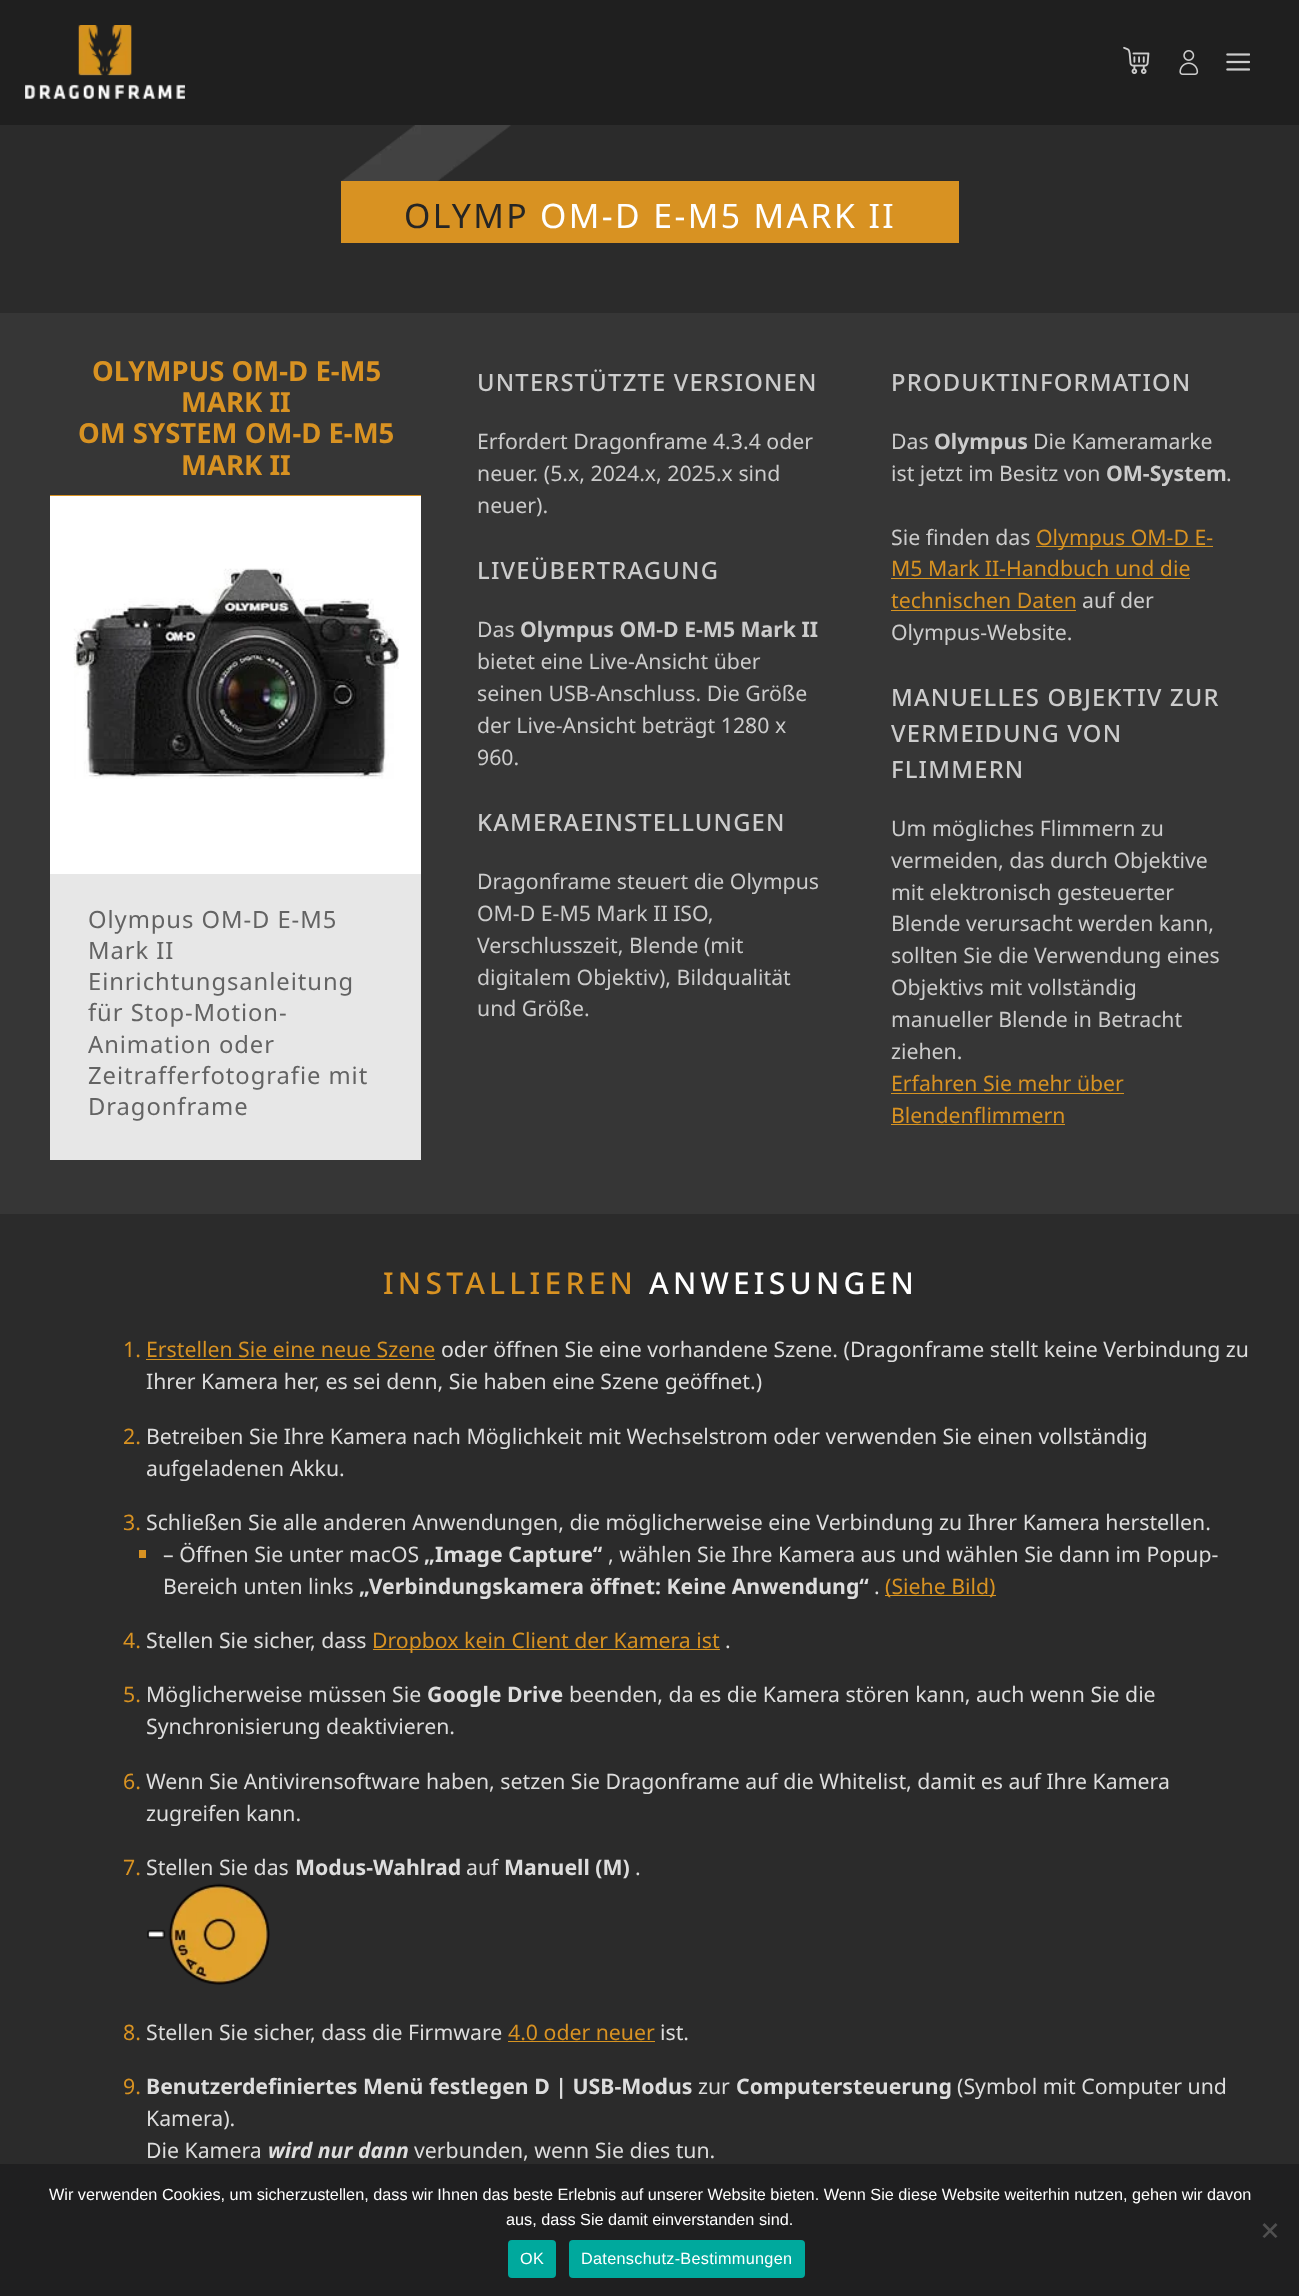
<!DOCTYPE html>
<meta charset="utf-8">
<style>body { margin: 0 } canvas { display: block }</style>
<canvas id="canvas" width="1299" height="2296"></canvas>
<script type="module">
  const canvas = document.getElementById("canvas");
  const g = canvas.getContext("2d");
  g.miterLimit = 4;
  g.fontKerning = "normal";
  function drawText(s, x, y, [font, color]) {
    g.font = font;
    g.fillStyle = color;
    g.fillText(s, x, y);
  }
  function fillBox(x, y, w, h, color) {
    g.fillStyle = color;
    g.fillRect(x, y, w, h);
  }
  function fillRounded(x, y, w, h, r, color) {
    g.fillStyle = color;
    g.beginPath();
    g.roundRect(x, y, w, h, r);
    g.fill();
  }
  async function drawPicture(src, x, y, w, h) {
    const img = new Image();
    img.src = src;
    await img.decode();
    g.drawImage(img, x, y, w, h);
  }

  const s1 = ["33.75px Noto Sans", "#252525"];
  const s2 = ["33.75px Noto Sans", "#FFFFFF"];
  const s3 = ["bold 27.5px Noto Sans", "#D89222"];
  const s4 = ["23.75px Noto Sans", "#636363"];
  const s5 = ["500 23.75px Noto Sans", "#CCCCCC"];
  const s6 = ["21.25px Noto Sans", "#CCCCCC"];
  const s7 = ["bold 21.25px Noto Sans", "#CCCCCC"];
  const s8 = ["21.25px Noto Sans", "#D89222"];
  const s9 = ["500 30px Noto Sans", "#D89222"];
  const s10 = ["500 30px Noto Sans", "#FFFFFF"];
  const s11 = ["21.25px Noto Sans", "#DDDDDD"];
  const s12 = ["bold 21.25px Noto Sans", "#DDDDDD"];
  const s13 = ["italic bold 21.25px Noto Sans", "#DDDDDD"];
  const s14 = ["16.25px Liberation Sans", "#FFFFFF"];

  fillBox(0, 0, 1299, 2296, "#2B2B2B");
  fillBox(0, 0, 1299, 125, "#1F1F1F");
  await drawPicture("pic1.png", 25, 25, 160, 74);
  await drawPicture("pic2.png", 1123, 46, 27, 29);
  await drawPicture("pic3.png", 1179, 50, 20, 25);
  await drawPicture("pic4.png", 1226, 53, 24, 18);
  await drawPicture("pic5.png", 341, 125, 170, 56);
  fillBox(341, 181, 618, 62, "#D89222");
  g.letterSpacing = "2.4px";
  drawText("OLYMP", 404, 228, s1);
  drawText("OM-D E-M5 MARK II", 540, 228, s2);
  fillBox(0, 313, 1299, 901, "#363636");
  fillBox(50, 496, 371, 378, "#FFFFFF");
  fillBox(50, 495, 371, 1, "#D89222");
  g.letterSpacing = "0px";
  drawText("OLYMPUS OM-D E-M5", 92, 381, s3);
  drawText("MARK II", 181, 412, s3);
  drawText("OM SYSTEM OM-D E-M5", 78, 443, s3);
  drawText("MARK II", 181, 475, s3);
  await drawPicture("pic6.png", 73, 568, 326, 211);
  fillBox(50, 874, 371, 286, "#E7E7E7");
  g.letterSpacing = "0.95px";
  drawText("Olympus OM-D E-M5", 88, 928, s4);
  drawText("Mark II", 88, 959, s4);
  drawText("Einrichtungsanleitung", 88, 990, s4);
  drawText("für Stop-Motion-", 88, 1021, s4);
  drawText("Animation oder", 88, 1053, s4);
  drawText("Zeitrafferfotografie mit", 88, 1084, s4);
  drawText("Dragonframe", 88, 1115, s4);
  g.letterSpacing = "1.2px";
  drawText("UNTERSTÜTZTE VERSIONEN", 477, 391, s5);
  g.letterSpacing = "0px";
  drawText("Erfordert Dragonframe 4.3.4 oder", 477, 449, s6);
  drawText("neuer. (5.x, 2024.x, 2025.x sind", 477, 481, s6);
  drawText("neuer).", 477, 513, s6);
  g.letterSpacing = "1.2px";
  drawText("LIVEÜBERTRAGUNG", 477, 579, s5);
  g.letterSpacing = "0px";
  drawText("Das", 477, 637, s6);
  drawText("Olympus OM-D E-M5 Mark II", 520, 637, s7);
  drawText("bietet eine Live-Ansicht über", 477, 669, s6);
  drawText("seinen USB-Anschluss. Die Größe", 477, 701, s6);
  drawText("der Live-Ansicht beträgt 1280 x", 477, 733, s6);
  drawText("960.", 477, 765, s6);
  g.letterSpacing = "1.2px";
  drawText("KAMERAEINSTELLUNGEN", 477, 831, s5);
  g.letterSpacing = "0px";
  drawText("Dragonframe steuert die Olympus", 477, 889, s6);
  drawText("OM-D E-M5 Mark II ISO,", 477, 921, s6);
  drawText("Verschlusszeit, Blende (mit", 477, 953, s6);
  drawText("digitalem Objektiv), Bildqualität", 477, 985, s6);
  drawText("und Größe.", 477, 1016, s6);
  g.letterSpacing = "1.2px";
  drawText("PRODUKTINFORMATION", 891, 391, s5);
  g.letterSpacing = "0px";
  drawText("Das", 891, 449, s6);
  drawText("Olympus", 934, 449, s7);
  drawText("Die Kameramarke", 1033, 449, s6);
  drawText("ist jetzt im Besitz von", 891, 481, s6);
  drawText("OM-System", 1106, 481, s7);
  drawText(".", 1226, 481, s6);
  drawText("Sie finden das", 891, 545, s6);
  fillBox(1036, 546, 177, 1, "#D79421");
  drawText("Olympus OM-D E-", 1036, 545, s8);
  drawText("M5 Mark II-Handbuch und die", 891, 576, s8);
  fillBox(891, 578, 299, 1, "#D79421");
  drawText("technischen Daten", 891, 608, s8);
  fillBox(891, 610, 185, 1, "#D79421");
  drawText("auf der", 1082, 608, s6);
  drawText("Olympus-Website.", 891, 640, s6);
  g.letterSpacing = "1.2px";
  drawText("MANUELLES OBJEKTIV ZUR", 891, 706, s5);
  drawText("VERMEIDUNG VON", 891, 742, s5);
  drawText("FLIMMERN", 891, 778, s5);
  g.letterSpacing = "0px";
  drawText("Um mögliches Flimmern zu", 891, 836, s6);
  drawText("vermeiden, das durch Objektive", 891, 868, s6);
  drawText("mit elektronisch gesteuerter", 891, 900, s6);
  drawText("Blende verursacht werden kann,", 891, 931, s6);
  drawText("sollten Sie die Verwendung eines", 891, 963, s6);
  drawText("Objektivs mit vollständig", 891, 995, s6);
  drawText("manueller Blende in Betracht", 891, 1027, s6);
  drawText("ziehen.", 891, 1059, s6);
  drawText("Erfahren Sie mehr über", 891, 1091, s8);
  fillBox(891, 1093, 233, 1, "#D79421");
  drawText("Blendenflimmern", 891, 1123, s8);
  fillBox(891, 1124, 174, 1, "#D79421");
  g.letterSpacing = "4.25px";
  drawText("INSTALLIEREN", 383, 1294, s9);
  drawText("ANWEISUNGEN", 649, 1294, s10);
  g.letterSpacing = "0px";
  drawText("1.", 123, 1357, s8);
  drawText("Erstellen Sie eine neue Szene", 146, 1357, s8);
  fillBox(146, 1359, 289, 1, "#D79421");
  drawText("oder öffnen Sie eine vorhandene Szene. (Dragonframe stellt keine Verbindung zu", 441, 1357, s11);
  drawText("Ihrer Kamera her, es sei denn, Sie haben eine Szene geöffnet.)", 146, 1389, s11);
  drawText("2.", 123, 1444, s8);
  drawText("Betreiben Sie Ihre Kamera nach Möglichkeit mit Wechselstrom oder verwenden Sie einen vollständig", 146, 1444, s11);
  drawText("aufgeladenen Akku.", 146, 1476, s11);
  drawText("3.", 123, 1530, s8);
  drawText("Schließen Sie alle anderen Anwendungen, die möglicherweise eine Verbindung zu Ihrer Kamera herstellen.", 146, 1530, s11);
  fillBox(139, 1550, 7, 8, "#D89222");
  drawText("– Öffnen Sie unter macOS", 163, 1562, s11);
  drawText("„Image Capture“", 424, 1562, s12);
  drawText(", wählen Sie Ihre Kamera aus und wählen Sie dann im Popup-", 608, 1562, s11);
  drawText("Bereich unten links", 163, 1594, s11);
  drawText("„Verbindungskamera öffnet: Keine Anwendung“", 359, 1594, s12);
  drawText(".", 874, 1594, s11);
  fillBox(885, 1595, 111, 1, "#D79421");
  drawText("(Siehe Bild)", 885, 1594, s8);
  drawText("4.", 123, 1648, s8);
  drawText("Stellen Sie sicher, dass", 146, 1648, s11);
  fillBox(373, 1649, 347, 1, "#D79421");
  drawText("Dropbox kein Client der Kamera ist", 372, 1648, s8);
  drawText(".", 725, 1648, s11);
  drawText("5.", 123, 1702, s8);
  drawText("Möglicherweise müssen Sie", 146, 1702, s11);
  drawText("Google Drive", 427, 1702, s12);
  drawText("beenden, da es die Kamera stören kann, auch wenn Sie die", 569, 1702, s11);
  drawText("Synchronisierung deaktivieren.", 146, 1734, s11);
  drawText("6.", 123, 1789, s8);
  drawText("Wenn Sie Antivirensoftware haben, setzen Sie Dragonframe auf die Whitelist, damit es auf Ihre Kamera", 146, 1789, s11);
  drawText("zugreifen kann.", 146, 1821, s11);
  drawText("7.", 123, 1875, s8);
  drawText("Stellen Sie das", 146, 1875, s11);
  drawText("Modus-Wahlrad", 295, 1875, s12);
  drawText("auf", 466, 1875, s11);
  drawText("Manuell (M)", 504, 1875, s12);
  drawText(".", 635, 1875, s11);
  await drawPicture("pic7.png", 147, 1883, 123, 102);
  drawText("8.", 123, 2040, s8);
  drawText("Stellen Sie sicher, dass die Firmware", 146, 2040, s11);
  drawText("4.0 oder neuer", 508, 2040, s8);
  fillBox(508, 2041, 147, 1, "#D79421");
  drawText("ist.", 660, 2040, s11);
  drawText("9.", 123, 2094, s8);
  drawText("Benutzerdefiniertes Menü festlegen D | USB-Modus", 146, 2094, s12);
  drawText("zur", 698, 2094, s11);
  drawText("Computersteuerung", 736, 2094, s12);
  drawText("(Symbol mit Computer und", 957, 2094, s11);
  drawText("Kamera).", 146, 2126, s11);
  drawText("Die Kamera", 146, 2158, s11);
  drawText("wird nur dann", 268, 2158, s13);
  drawText("verbunden, wenn Sie dies tun.", 414, 2158, s11);
  fillBox(0, 2164, 1299, 132, "#1F1F20");
  drawText("Wir verwenden Cookies, um sicherzustellen, dass wir Ihnen das beste Erlebnis auf unserer Website bieten. Wenn Sie diese Website weiterhin nutzen, gehen wir davon", 49, 2200, s14);
  drawText("aus, dass Sie damit einverstanden sind.", 506, 2225, s14);
  g.fillStyle = "#505050";
  g.beginPath();
  g.moveTo(1275.5, 2223);
  g.lineTo(1277.5, 2225);
  g.lineTo(1264.5, 2238);
  g.lineTo(1262.5, 2236.5);
  g.closePath();
  g.fill();
  g.beginPath();
  g.moveTo(1262.5, 2225);
  g.lineTo(1264.5, 2223);
  g.lineTo(1277.5, 2236.5);
  g.lineTo(1275.5, 2238);
  g.closePath();
  g.fill();
  fillRounded(508, 2240, 48, 38, 4, "#00A99D");
  g.letterSpacing = "0.3px";
  drawText("OK", 520, 2264, s14);
  fillRounded(569, 2240, 236, 38, 4, "#00A99D");
  drawText("Datenschutz-Bestimmungen", 581, 2264, s14);
</script>
